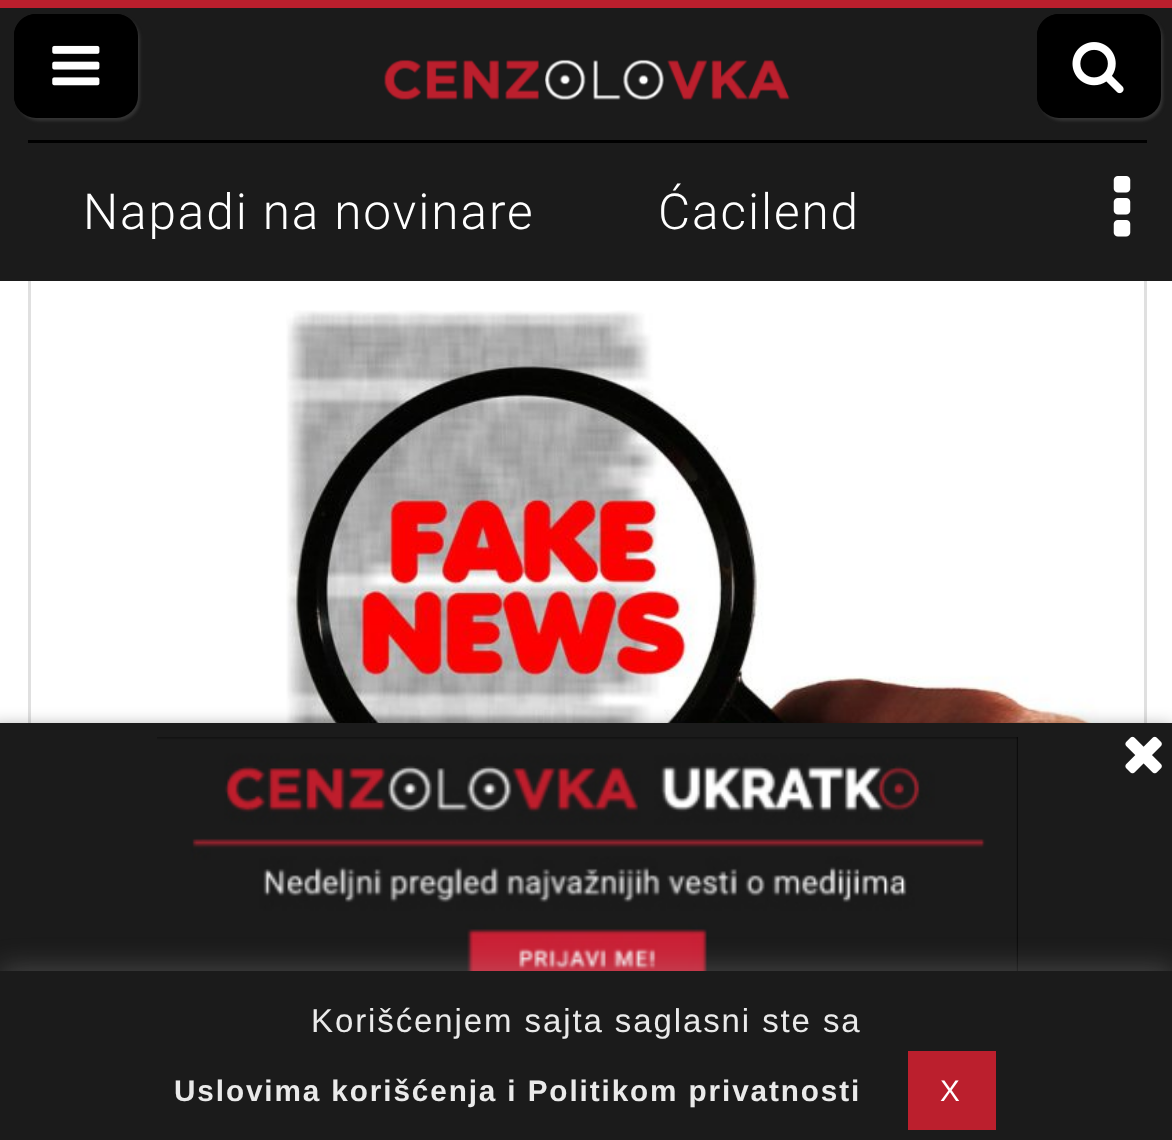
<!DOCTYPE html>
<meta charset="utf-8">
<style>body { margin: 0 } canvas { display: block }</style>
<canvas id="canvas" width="1172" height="1140"></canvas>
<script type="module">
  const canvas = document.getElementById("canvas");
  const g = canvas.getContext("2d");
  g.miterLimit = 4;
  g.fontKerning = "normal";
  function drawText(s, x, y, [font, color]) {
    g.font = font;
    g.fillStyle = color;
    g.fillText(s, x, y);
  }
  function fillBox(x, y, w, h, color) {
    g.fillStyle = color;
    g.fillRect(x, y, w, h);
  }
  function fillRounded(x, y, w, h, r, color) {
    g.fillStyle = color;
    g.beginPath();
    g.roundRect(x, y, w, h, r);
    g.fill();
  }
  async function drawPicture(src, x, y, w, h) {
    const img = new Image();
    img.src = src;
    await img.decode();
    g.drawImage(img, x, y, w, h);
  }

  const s1 = ["300 49.5px Roboto", "#FFFFFF"];
  const s2 = ["33px Liberation Sans", "#EAEAEA"];
  const s3 = ["bold 29.7px Liberation Sans", "#EAEAEA"];
  const s4 = ["29.7px Liberation Sans", "#FFFFFF"];

  fillBox(0, 0, 1172, 1140, "#FFFFFF");
  g.strokeStyle = "#E0E0E0";
  g.lineWidth = 3;
  g.strokeRect(29.5, -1.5, 1116, 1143);
  await drawPicture("pic1.png", 286, 310, 831, 413);
  fillBox(0, 8, 1172, 273, "#1B1B1B");
  fillBox(0, 0, 1172, 8, "#BB1F2D");
  fillBox(28, 140, 1119, 3, "#000000");
  g.fillStyle = "#333333";
  g.filter = "blur(1.5px)";
  g.beginPath();
  g.roundRect(17, 17, 123, 104, 22);
  g.fill();
  g.filter = "none";
  fillRounded(14, 14, 124, 104, 22, "#000000");
  g.beginPath();
  g.moveTo(38, 16);
  g.lineTo(118, 16);
  g.bezierCurveTo(124, 16, 129, 18, 133, 22);
  g.bezierCurveTo(129, 17, 123, 14, 116, 14);
  g.lineTo(36, 14);
  g.bezierCurveTo(24, 14, 14, 24, 14, 36);
  g.lineTo(14, 96);
  g.bezierCurveTo(14, 101, 16, 106, 19, 110);
  g.bezierCurveTo(17, 107, 16, 103, 16, 99);
  g.lineTo(16, 38);
  g.bezierCurveTo(16, 26, 26, 16, 38, 16);
  g.closePath();
  g.fill();
  await drawPicture("pic2.png", 52, 45, 48, 41);
  await drawPicture("pic3.png", 384, 59, 406, 41);
  g.fillStyle = "#333333";
  g.filter = "blur(1.5px)";
  g.beginPath();
  g.roundRect(1040, 17, 123, 104, 22);
  g.fill();
  g.filter = "none";
  fillRounded(1037, 14, 124, 104, 22, "#000000");
  g.beginPath();
  g.moveTo(1062, 16);
  g.lineTo(1141, 16);
  g.bezierCurveTo(1147, 16, 1152, 18, 1156, 22);
  g.bezierCurveTo(1152, 17, 1146, 14, 1139, 14);
  g.lineTo(1059, 14);
  g.bezierCurveTo(1047, 14, 1037, 24, 1037, 36);
  g.lineTo(1037, 96);
  g.bezierCurveTo(1037, 103, 1040, 108, 1044, 112);
  g.bezierCurveTo(1042, 109, 1040, 104, 1040, 99);
  g.lineTo(1040, 38);
  g.bezierCurveTo(1040, 26, 1049, 16, 1062, 16);
  g.closePath();
  g.fill();
  await drawPicture("pic4.png", 1072, 42, 52, 52);
  g.letterSpacing = "1.9px";
  drawText("Napadi na novinare", 83, 229, s1);
  drawText("Ćacilend", 658, 229, s1);
  await drawPicture("pic5.png", 1113, 176, 18, 61);
  g.fillStyle = "rgba(0, 0, 0, 0.49)";
  g.filter = "blur(9.5px)";
  g.beginPath();
  g.rect(-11, 729, 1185, 322);
  g.fill();
  g.filter = "none";
  fillBox(0, 723, 1172, 248, "#1B1B1B");
  fillBox(157, 737, 861, 234, "#000000");
  await drawPicture("pic6.png", 157, 737, 861, 234);
  await drawPicture("pic7.png", 1125, 736, 37, 38);
  g.fillStyle = "rgba(172, 171, 171, 0.3)";
  g.filter = "blur(14px)";
  g.beginPath();
  g.rect(0, 968, 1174, 171);
  g.fill();
  g.filter = "none";
  fillBox(0, 971, 1172, 169, "#1B1B1B");
  drawText("Korišćenjem sajta saglasni ste sa", 311, 1032, s2);
  drawText("Uslovima korišćenja i Politikom privatnosti", 174, 1101, s3);
  fillBox(908, 1051, 88, 79, "#BB1F2D");
  drawText("X", 940, 1101, s4);
</script>
